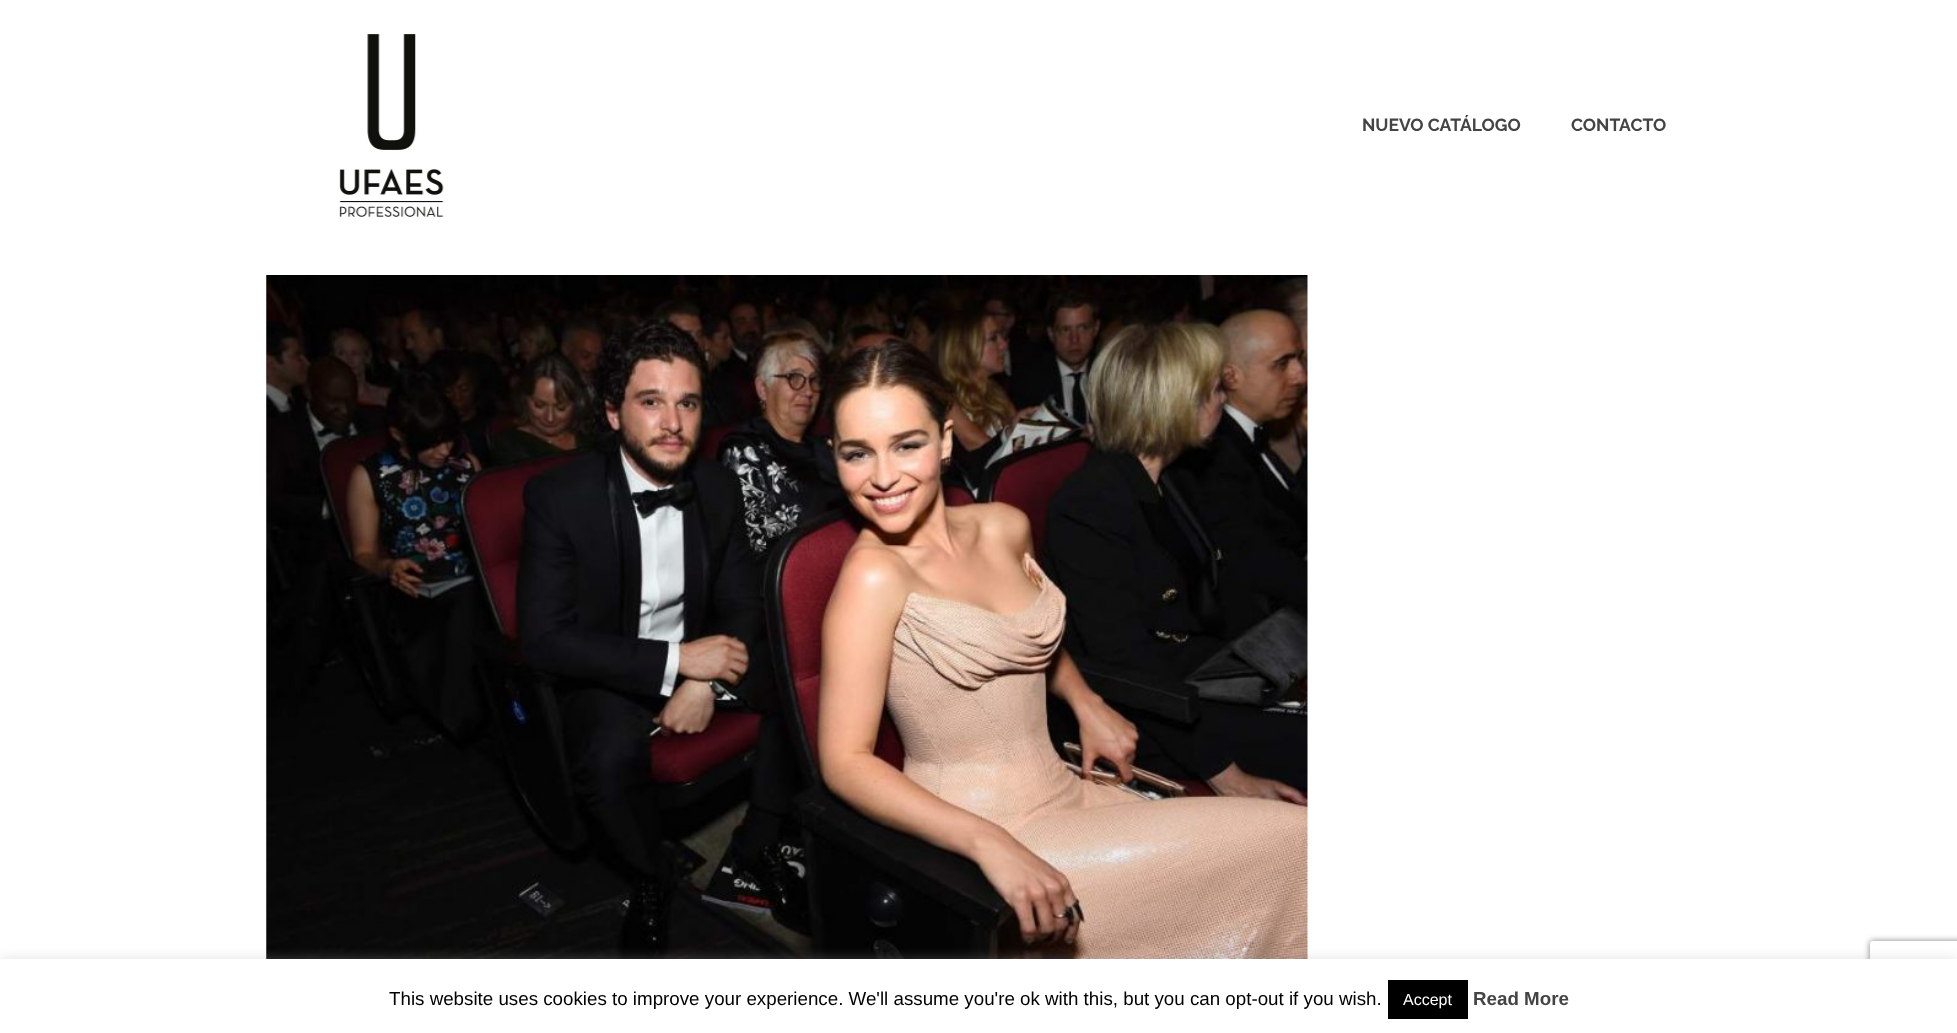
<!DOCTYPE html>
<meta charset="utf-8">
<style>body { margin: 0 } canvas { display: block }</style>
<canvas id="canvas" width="1957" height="1033"></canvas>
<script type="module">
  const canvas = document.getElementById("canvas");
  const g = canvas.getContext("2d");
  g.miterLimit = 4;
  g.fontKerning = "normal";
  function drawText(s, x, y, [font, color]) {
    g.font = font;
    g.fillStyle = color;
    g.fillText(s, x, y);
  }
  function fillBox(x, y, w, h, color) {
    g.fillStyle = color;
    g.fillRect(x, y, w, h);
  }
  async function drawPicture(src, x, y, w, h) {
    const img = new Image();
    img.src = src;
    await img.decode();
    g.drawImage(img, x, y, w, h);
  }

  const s1 = ["bold 17.5px Raleway", "#444444"];
  const s2 = ["18.75px Liberation Sans", "#000000"];
  const s3 = ["16px Liberation Sans", "#FFFFFF"];
  const s4 = ["bold 18.75px Liberation Sans", "#444444"];

  fillBox(0, 0, 1957, 1033, "#FFFFFF");
  await drawPicture("pic1.png", 339, 34, 105, 183);
  drawText("NUEVO CATÁLOGO", 1362, 131, s1);
  drawText("CONTACTO", 1571, 131, s1);
  await drawPicture("pic2.png", 266, 275, 1042, 684);
  g.fillStyle = "rgba(172, 171, 171, 0.3)";
  g.filter = "blur(6px)";
  g.beginPath();
  g.rect(0, 958, 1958, 75);
  g.fill();
  g.filter = "none";
  g.save();
  g.beginPath();
  g.moveTo(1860, 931);
  g.lineTo(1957, 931);
  g.lineTo(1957, 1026);
  g.lineTo(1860, 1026);
  g.closePath();
  g.moveTo(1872.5, 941);
  g.lineTo(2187.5, 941);
  g.bezierCurveTo(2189, 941, 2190, 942, 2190, 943.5);
  g.lineTo(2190, 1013.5);
  g.bezierCurveTo(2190, 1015, 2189, 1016, 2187.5, 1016);
  g.lineTo(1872.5, 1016);
  g.bezierCurveTo(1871, 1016, 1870, 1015, 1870, 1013.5);
  g.lineTo(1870, 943.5);
  g.bezierCurveTo(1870, 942, 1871, 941, 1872.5, 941);
  g.closePath();
  g.clip("evenodd");
  g.fillStyle = "#808080";
  g.filter = "blur(3px)";
  g.beginPath();
  g.roundRect(1870, 941, 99, 75, 2.5);
  g.fill();
  g.filter = "none";
  g.restore();
  fillBox(0, 959, 1957, 74, "#FFFFFF");
  drawText("This website uses cookies to improve your experience. We'll assume you're ok with this, but you can opt-out if you wish.", 389, 1005, s2);
  fillBox(1388, 980, 80, 39, "#000000");
  drawText("Accept", 1403, 1005, s3);
  drawText("Read More", 1473, 1005, s4);
</script>
